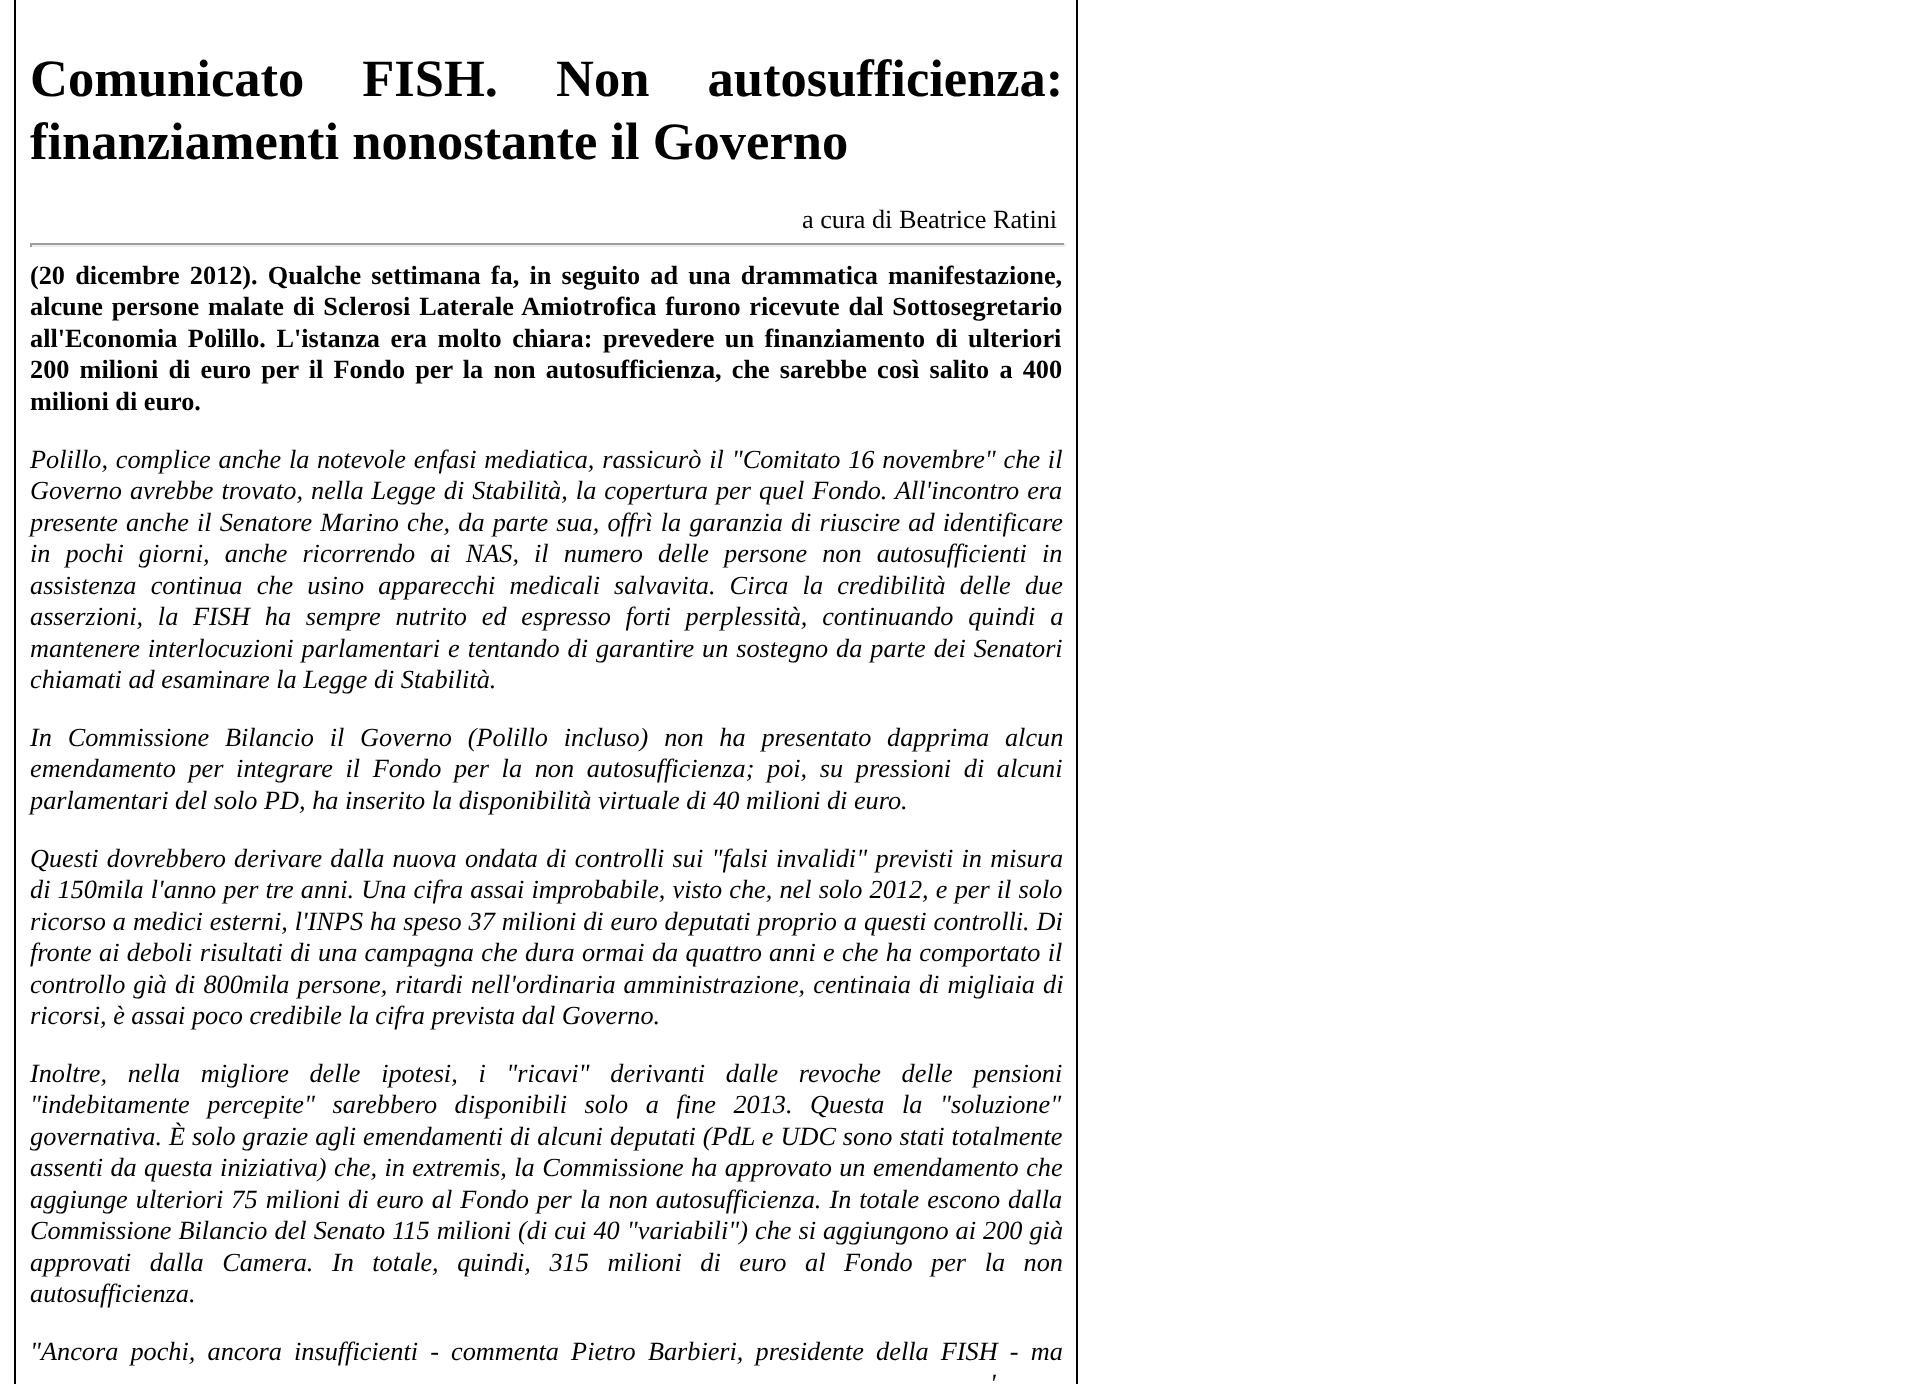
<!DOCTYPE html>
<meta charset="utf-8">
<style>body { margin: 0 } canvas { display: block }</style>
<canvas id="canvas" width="1918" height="1384"></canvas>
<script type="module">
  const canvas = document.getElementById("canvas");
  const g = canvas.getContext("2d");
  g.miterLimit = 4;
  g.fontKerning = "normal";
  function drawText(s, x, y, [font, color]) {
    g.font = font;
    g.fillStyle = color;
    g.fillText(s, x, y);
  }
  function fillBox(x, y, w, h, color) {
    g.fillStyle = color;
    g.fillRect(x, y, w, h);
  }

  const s1 = ["bold 52.5px Liberation Serif", "#000000"];
  const s2 = ["26.25px Liberation Serif", "#000000"];
  const s3 = ["bold 26.25px Liberation Serif", "#000000"];
  const s4 = ["italic 26.25px Liberation Serif", "#000000"];

  fillBox(0, 0, 1918, 1384, "#FFFFFF");
  g.strokeStyle = "#000000";
  g.lineWidth = 2;
  g.strokeRect(15, -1, 1062, 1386);
  g.wordSpacing = "45px";
  drawText("Comunicato FISH. Non autosufficienza:", 30, 96, s1);
  g.wordSpacing = "0px";
  drawText("finanziamenti nonostante il Governo", 30, 159, s1);
  drawText("a cura di Beatrice Ratini", 802, 228, s2);
  fillBox(30, 243, 1036, 2, "#9F9F9F");
  fillBox(1064, 243, 2, 4, "#EEEEEE");
  fillBox(30, 245, 1036, 2, "#EEEEEE");
  fillBox(30, 243, 2, 4, "#9F9F9F");
  g.wordSpacing = "3.6px";
  drawText("(20 dicembre 2012). Qualche settimana fa, in seguito ad una drammatica manifestazione,", 30, 284, s3);
  g.wordSpacing = "2.25px";
  drawText("alcune persone malate di Sclerosi Laterale Amiotrofica furono ricevute dal Sottosegretario", 30, 315, s3);
  g.wordSpacing = "4px";
  drawText("all'Economia Polillo. L'istanza era molto chiara: prevedere un finanziamento di ulteriori", 30, 347, s3);
  g.wordSpacing = "3.6px";
  drawText("200 milioni di euro per il Fondo per la non autosufficienza, che sarebbe così salito a 400", 30, 378, s3);
  g.wordSpacing = "0px";
  drawText("milioni di euro.", 30, 410, s3);
  g.wordSpacing = "1.25px";
  drawText("Polillo, complice anche la notevole enfasi mediatica, rassicurò il \"Comitato 16 novembre\" che il", 30, 468, s4);
  g.wordSpacing = "1.5px";
  drawText("Governo avrebbe trovato, nella Legge di Stabilità, la copertura per quel Fondo. All'incontro era", 30, 499, s4);
  g.wordSpacing = "1.6px";
  drawText("presente anche il Senatore Marino che, da parte sua, offrì la garanzia di riuscire ad identificare", 30, 531, s4);
  g.wordSpacing = "8.5px";
  drawText("in pochi giorni, anche ricorrendo ai NAS, il numero delle persone non autosufficienti in", 30, 562, s4);
  g.wordSpacing = "7.6px";
  drawText("assistenza continua che usino apparecchi medicali salvavita. Circa la credibilità delle due", 30, 594, s4);
  g.wordSpacing = "8.25px";
  drawText("asserzioni, la FISH ha sempre nutrito ed espresso forti perplessità, continuando quindi a", 30, 625, s4);
  g.wordSpacing = "1.4px";
  drawText("mantenere interlocuzioni parlamentari e tentando di garantire un sostegno da parte dei Senatori", 30, 657, s4);
  g.wordSpacing = "0px";
  drawText("chiamati ad esaminare la Legge di Stabilità.", 30, 688, s4);
  g.wordSpacing = "9.25px";
  drawText("In Commissione Bilancio il Governo (Polillo incluso) non ha presentato dapprima alcun", 30, 746, s4);
  g.wordSpacing = "6.1px";
  drawText("emendamento per integrare il Fondo per la non autosufficienza; poi, su pressioni di alcuni", 30, 777, s4);
  g.wordSpacing = "0px";
  drawText("parlamentari del solo PD, ha inserito la disponibilità virtuale di 40 milioni di euro.", 30, 809, s4);
  g.wordSpacing = "1.7px";
  drawText("Questi dovrebbero derivare dalla nuova ondata di controlli sui \"falsi invalidi\" previsti in misura", 30, 867, s4);
  g.wordSpacing = "0.6px";
  drawText("di 150mila l'anno per tre anni. Una cifra assai improbabile, visto che, nel solo 2012, e per il solo", 30, 898, s4);
  g.wordSpacing = "0.4px";
  drawText("ricorso a medici esterni, l'INPS ha speso 37 milioni di euro deputati proprio a questi controlli. Di", 30, 930, s4);
  g.wordSpacing = "0.75px";
  drawText("fronte ai deboli risultati di una campagna che dura ormai da quattro anni e che ha comportato il", 30, 961, s4);
  g.wordSpacing = "1.5px";
  drawText("controllo già di 800mila persone, ritardi nell'ordinaria amministrazione, centinaia di migliaia di", 30, 993, s4);
  g.wordSpacing = "0px";
  drawText("ricorsi, è assai poco credibile la cifra prevista dal Governo.", 30, 1024, s4);
  g.wordSpacing = "14.1px";
  drawText("Inoltre, nella migliore delle ipotesi, i \"ricavi\" derivanti dalle revoche delle pensioni", 30, 1082, s4);
  g.wordSpacing = "11px";
  drawText("\"indebitamente percepite\" sarebbero disponibili solo a fine 2013. Questa la \"soluzione\"", 30, 1113, s4);
  g.wordSpacing = "0.4px";
  drawText("governativa. È solo grazie agli emendamenti di alcuni deputati (PdL e UDC sono stati totalmente", 30, 1145, s4);
  g.wordSpacing = "0.9px";
  drawText("assenti da questa iniziativa) che, in extremis, la Commissione ha approvato un emendamento che", 30, 1176, s4);
  g.wordSpacing = "1.5px";
  drawText("aggiunge ulteriori 75 milioni di euro al Fondo per la non autosufficienza. In totale escono dalla", 30, 1208, s4);
  g.wordSpacing = "0.5px";
  drawText("Commissione Bilancio del Senato 115 milioni (di cui 40 \"variabili\") che si aggiungono ai 200 già", 30, 1239, s4);
  g.wordSpacing = "12px";
  drawText("approvati dalla Camera. In totale, quindi, 315 milioni di euro al Fondo per la non", 30, 1271, s4);
  g.wordSpacing = "0px";
  drawText("autosufficienza.", 30, 1302, s4);
  g.wordSpacing = "5.6px";
  drawText("\"Ancora pochi, ancora insufficienti - commenta Pietro Barbieri, presidente della FISH - ma", 30, 1360, s4);
  g.wordSpacing = "0px";
  drawText("'", 990, 1392, s4);
</script>
